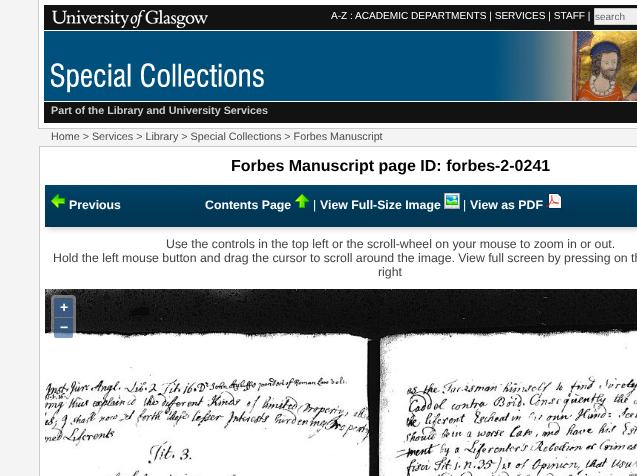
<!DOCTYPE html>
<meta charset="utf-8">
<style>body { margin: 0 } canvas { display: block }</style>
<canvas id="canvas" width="637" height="476"></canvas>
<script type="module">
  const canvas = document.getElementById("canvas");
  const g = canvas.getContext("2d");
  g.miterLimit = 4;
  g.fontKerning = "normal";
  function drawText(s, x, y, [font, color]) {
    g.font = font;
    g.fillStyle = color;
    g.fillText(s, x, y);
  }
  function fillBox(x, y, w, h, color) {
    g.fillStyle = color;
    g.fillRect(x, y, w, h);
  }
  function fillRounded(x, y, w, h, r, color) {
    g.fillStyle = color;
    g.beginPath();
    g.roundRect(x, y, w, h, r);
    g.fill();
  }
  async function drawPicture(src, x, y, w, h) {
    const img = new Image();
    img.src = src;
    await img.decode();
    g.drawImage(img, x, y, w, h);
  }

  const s1 = ["10.1px Liberation Sans", "#FFFFFF"];
  const s2 = ["10px Liberation Sans", "#666666"];
  const s3 = ["bold 10.75px Liberation Sans", "#CCCCCC"];
  const s4 = ["10.75px Liberation Sans", "#4C4C4C"];
  const s5 = ["bold 16px Liberation Sans", "#000000"];
  const s6 = ["bold 12.3px Liberation Sans", "#FFFFFF"];
  const s7 = ["12.3px Liberation Sans", "#FFFFFF"];
  const s8 = ["12.3px Liberation Sans", "#404040"];
  const s9 = ["bold 14px Liberation Sans", "#FFFFFF"];

  fillBox(0, 0, 637, 476, "#F4F4F4");
  fillBox(39, 0, 598, 128, "#FFFFFF");
  fillBox(38, 128, 599, 1, "#CCCCCC");
  fillBox(38, 0, 1, 129, "#CCCCCC");
  fillBox(44, 5, 593, 25, "#121212");
  await drawPicture("pic1.png", 52, 10, 156, 18);
  drawText("A-Z :", 331, 19, s1);
  drawText("ACADEMIC DEPARTMENTS | SERVICES | STAFF |", 355, 19, s1);
  g.fillStyle = "#EFEFEF";
  g.beginPath();
  g.rect(594.5, 8.5, 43, 16);
  g.fill();
  g.strokeStyle = "#CCCCCC";
  g.stroke();
  drawText("search", 595, 20, s2);
  await drawPicture("pic2.png", 44, 31, 593, 70);
  await drawPicture("pic3.png", 50, 63, 214, 30);
  fillBox(44, 102, 593, 21, "#121212");
  drawText("Part of the Library and University Services", 51, 114, s3);
  drawText("Home > Services > Library > Special Collections > Forbes Manuscript", 51, 140, s4);
  g.strokeRect(39.5, 146.5, 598, 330);
  fillBox(40, 147, 597, 329, "#FFFFFF");
  drawText("Forbes Manuscript page ID: forbes-2-0241", 231, 171, s5);
  g.fillStyle = "rgba(0, 0, 0, 0.15)";
  g.filter = "blur(2.5px)";
  g.beginPath();
  g.rect(48, 188, 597, 42);
  g.fill();
  g.filter = "none";
  await drawPicture("pic4.png", 45, 185, 592, 42);
  await drawPicture("pic5.png", 51, 194, 14, 14);
  drawText("Previous", 69, 209, s6);
  drawText("Contents Page", 205, 209, s6);
  await drawPicture("pic6.png", 295, 194, 14, 14);
  drawText("|", 313, 209, s7);
  drawText("View Full-Size Image", 320, 209, s6);
  await drawPicture("pic7.png", 444, 193, 16, 16);
  drawText("|", 463, 209, s7);
  drawText("View as PDF", 470, 209, s6);
  await drawPicture("pic8.png", 546, 193, 16, 16);
  drawText("Use the controls in the top left or the scroll-wheel on your mouse to zoom in or out.", 166, 248, s8);
  drawText("Hold the left mouse button and drag the cursor to scroll around the image. View full screen by pressing on th", 53, 262, s8);
  drawText("right", 378, 276, s8);
  await drawPicture("pic9.png", 45, 289, 592, 187);
  fillRounded(51, 295, 25, 46, 4, "rgba(255, 255, 255, 0.4)");
  g.fillStyle = "rgba(0, 60, 136, 0.5)";
  g.beginPath();
  g.roundRect(54, 298, 19, 19, [2, 2, 0, 0]);
  g.fill();
  drawText("+", 60, 312, s9);
  g.fillStyle = "rgba(0, 60, 136, 0.5)";
  g.beginPath();
  g.roundRect(54, 318, 19, 20, [0, 0, 2, 2]);
  g.fill();
  drawText("−", 60, 332, s9);
</script>
